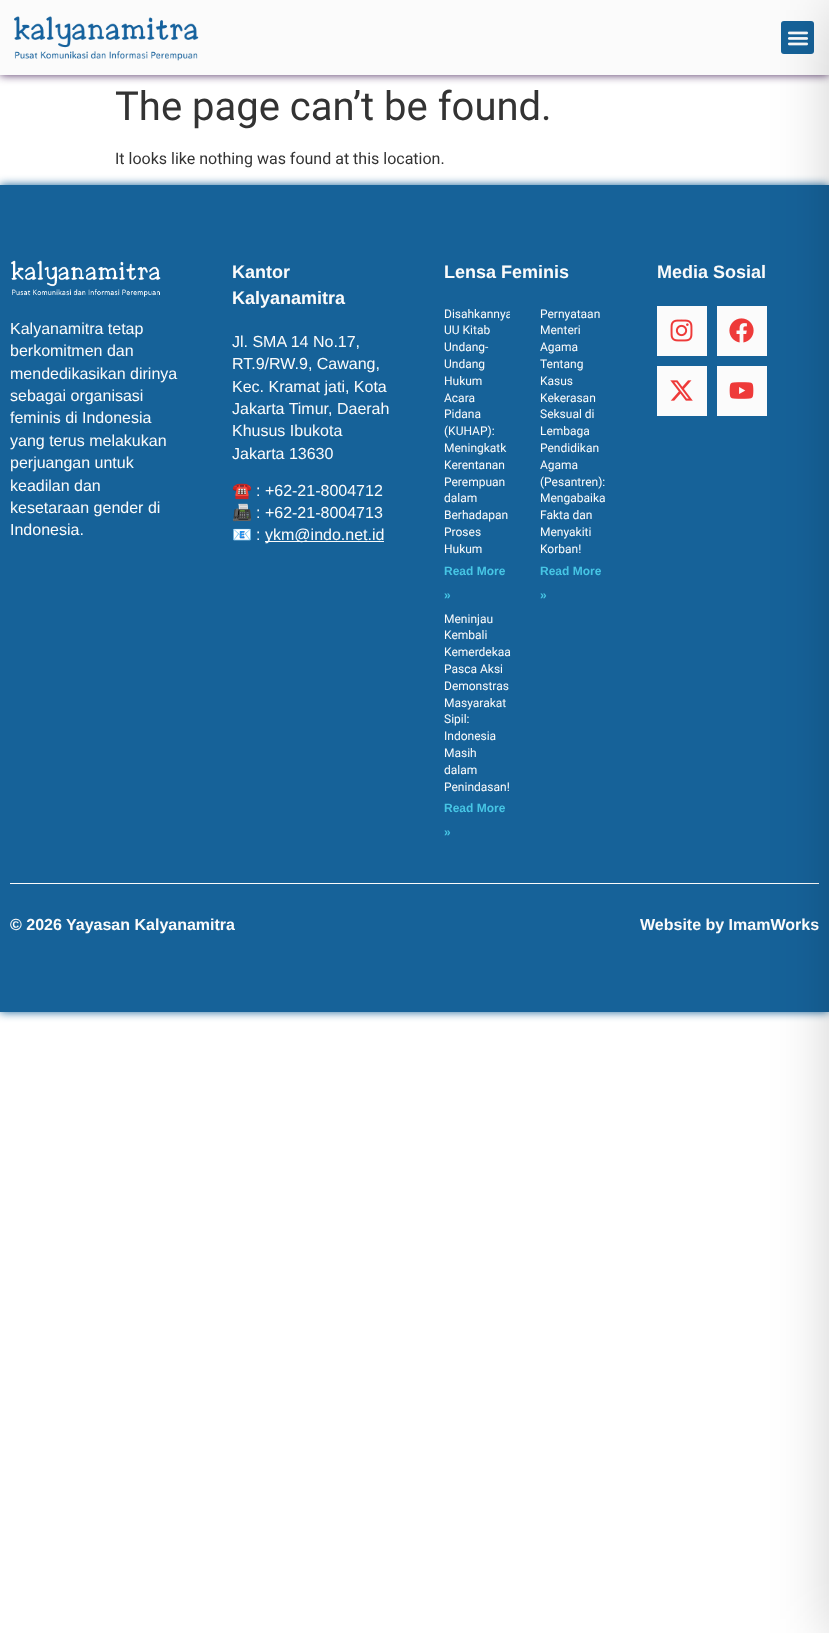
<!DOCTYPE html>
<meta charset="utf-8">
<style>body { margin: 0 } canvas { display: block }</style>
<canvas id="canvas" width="829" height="1633"></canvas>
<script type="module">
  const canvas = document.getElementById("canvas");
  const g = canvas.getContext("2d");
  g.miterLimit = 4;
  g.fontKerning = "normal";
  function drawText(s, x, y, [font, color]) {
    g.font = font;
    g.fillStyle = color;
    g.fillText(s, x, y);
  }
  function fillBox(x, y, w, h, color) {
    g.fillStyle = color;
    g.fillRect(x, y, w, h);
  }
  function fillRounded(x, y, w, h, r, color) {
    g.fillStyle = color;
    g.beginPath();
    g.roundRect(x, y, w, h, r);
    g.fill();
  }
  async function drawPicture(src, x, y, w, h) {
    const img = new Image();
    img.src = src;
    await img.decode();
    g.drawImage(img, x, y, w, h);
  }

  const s1 = ["40px Roboto", "#333333"];
  const s2 = ["16px Roboto", "#333333"];
  const s3 = ["16px Liberation Sans", "#FBFBFB"];
  const s4 = ["bold 18px Liberation Sans", "#FBFBFB"];
  const s5 = ["16px Noto Color Emoji", "#FBFBFB"];
  const s6 = ["12px Roboto", "#FBFBFB"];
  const s7 = ["bold 12px Liberation Sans", "#46C5E4"];
  const s8 = ["bold 16px Liberation Sans", "#FBFBFB"];

  fillBox(0, 0, 829, 1633, "#FFFFFF");
  g.fillStyle = "#4D2B5F";
  g.filter = "blur(5px)";
  g.beginPath();
  g.rect(0, 0, 829, 75);
  g.fill();
  g.filter = "none";
  fillBox(0, 0, 829, 75, "#FBFBFB");
  await drawPicture("pic1.png", 14, 16, 185, 45);
  fillRounded(781, 21, 33, 33, 3, "#166299");
  await drawPicture("pic2.png", 787, 31, 22, 15);
  drawText("The page can’t be found.", 115, 120, s1);
  drawText("It looks like nothing was found at this location.", 115, 164, s2);
  g.fillStyle = "#166299";
  g.filter = "blur(5px)";
  g.beginPath();
  g.rect(0, 185, 829, 827);
  g.fill();
  g.filter = "none";
  fillBox(0, 185, 829, 827, "#166299");
  fillBox(717, 306, 50, 50, "#FBFBFB");
  await drawPicture("pic5.png", 729, 318, 25, 25);
  fillBox(717, 366, 50, 50, "#FBFBFB");
  await drawPicture("pic7.png", 729, 382, 25, 17);
  fillBox(10, 883, 809, 1, "#FBFBFB");
  g.fillStyle = "rgba(0, 0, 0, 0.2)";
  g.filter = "blur(30px)";
  g.beginPath();
  g.rect(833, 10, 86, 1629);
  g.fill();
  g.filter = "none";
  await drawPicture("pic3.png", 11, 260, 150, 37);
  drawText("Kalyanamitra tetap", 10, 334, s3);
  drawText("berkomitmen dan", 10, 356, s3);
  drawText("mendedikasikan dirinya", 10, 379, s3);
  drawText("sebagai organisasi", 10, 401, s3);
  drawText("feminis di Indonesia", 10, 423, s3);
  drawText("yang terus melakukan", 10, 446, s3);
  drawText("perjuangan untuk", 10, 468, s3);
  drawText("keadilan dan", 10, 491, s3);
  drawText("kesetaraan gender di", 10, 513, s3);
  drawText("Indonesia.", 10, 535, s3);
  drawText("Kantor", 232, 278, s4);
  drawText("Kalyanamitra", 232, 304, s4);
  drawText("Jl. SMA 14 No.17,", 232, 347, s3);
  drawText("RT.9/RW.9, Cawang,", 232, 369, s3);
  drawText("Kec. Kramat jati, Kota", 232, 392, s3);
  drawText("Jakarta Timur, Daerah", 232, 414, s3);
  drawText("Khusus Ibukota", 232, 436, s3);
  drawText("Jakarta 13630", 232, 459, s3);
  drawText("☎️", 232, 496, s5);
  drawText(": +62-21-8004712", 256, 496, s3);
  drawText("📠", 232, 518, s5);
  drawText(": +62-21-8004713", 256, 518, s3);
  drawText("📧", 232, 540, s5);
  drawText(":", 256, 540, s3);
  fillBox(265, 541, 119, 1, "#FBFBFB");
  drawText("ykm@indo.net.id", 265, 540, s3);
  drawText("Lensa Feminis", 444, 278, s4);
  g.save();
  g.beginPath();
  g.rect(444, 306, 66, 300);
  g.clip();
  drawText("Disahkannya", 444, 318, s6);
  g.restore();
  drawText("UU Kitab", 444, 334, s6);
  drawText("Undang-", 444, 351, s6);
  drawText("Undang", 444, 368, s6);
  drawText("Hukum", 444, 385, s6);
  drawText("Acara", 444, 402, s6);
  drawText("Pidana", 444, 418, s6);
  drawText("(KUHAP):", 444, 435, s6);
  drawText("Meningkatk", 444, 452, s6);
  drawText("Kerentanan", 444, 469, s6);
  drawText("Perempuan", 444, 486, s6);
  drawText("dalam", 444, 502, s6);
  drawText("Berhadapan", 444, 519, s6);
  drawText("Proses", 444, 536, s6);
  drawText("Hukum", 444, 553, s6);
  drawText("Read More", 444, 575, s7);
  drawText("»", 444, 599, s7);
  drawText("Pernyataan", 540, 318, s6);
  drawText("Menteri", 540, 334, s6);
  drawText("Agama", 540, 351, s6);
  drawText("Tentang", 540, 368, s6);
  drawText("Kasus", 540, 385, s6);
  drawText("Kekerasan", 540, 402, s6);
  drawText("Seksual di", 540, 418, s6);
  drawText("Lembaga", 540, 435, s6);
  drawText("Pendidikan", 540, 452, s6);
  drawText("Agama", 540, 469, s6);
  drawText("(Pesantren):", 540, 486, s6);
  drawText("Mengabaika", 540, 502, s6);
  drawText("Fakta dan", 540, 519, s6);
  drawText("Menyakiti", 540, 536, s6);
  drawText("Korban!", 540, 553, s6);
  drawText("Read More", 540, 575, s7);
  drawText("»", 540, 599, s7);
  drawText("Meninjau", 444, 623, s6);
  drawText("Kembali", 444, 639, s6);
  drawText("Kemerdekaa", 444, 656, s6);
  drawText("Pasca Aksi", 444, 673, s6);
  drawText("Demonstras", 444, 690, s6);
  drawText("Masyarakat", 444, 707, s6);
  drawText("Sipil:", 444, 723, s6);
  drawText("Indonesia", 444, 740, s6);
  drawText("Masih", 444, 757, s6);
  drawText("dalam", 444, 774, s6);
  drawText("Penindasan!", 444, 791, s6);
  drawText("Read More", 444, 812, s7);
  drawText("»", 444, 836, s7);
  drawText("Media Sosial", 657, 278, s4);
  fillBox(657, 306, 50, 50, "#FBFBFB");
  await drawPicture("pic4.png", 670, 319, 23, 23);
  fillBox(657, 366, 50, 50, "#FBFBFB");
  await drawPicture("pic6.png", 670, 380, 23, 21);
  drawText("© 2026 Yayasan Kalyanamitra", 10, 930, s8);
  drawText("Website by ImamWorks", 640, 930, s8);
</script>
